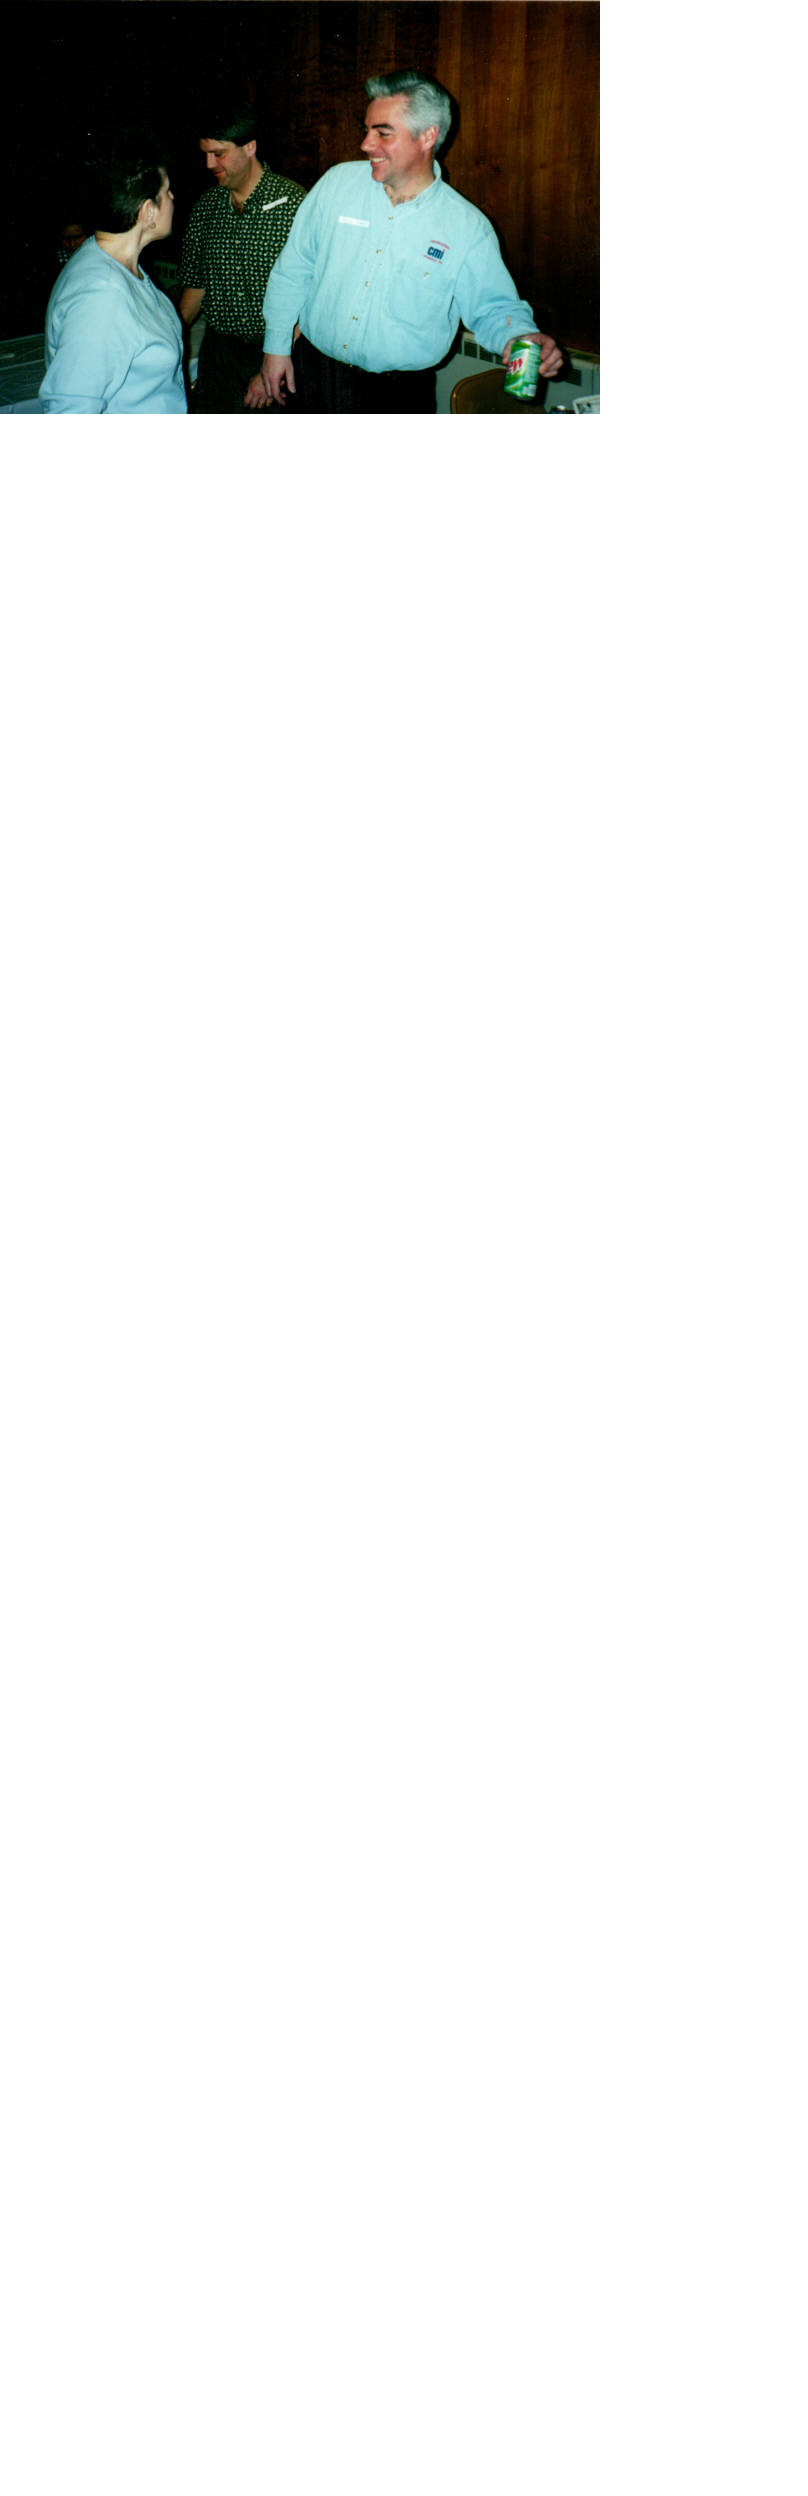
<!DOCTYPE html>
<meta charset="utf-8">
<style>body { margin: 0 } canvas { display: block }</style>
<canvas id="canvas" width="808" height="2496"></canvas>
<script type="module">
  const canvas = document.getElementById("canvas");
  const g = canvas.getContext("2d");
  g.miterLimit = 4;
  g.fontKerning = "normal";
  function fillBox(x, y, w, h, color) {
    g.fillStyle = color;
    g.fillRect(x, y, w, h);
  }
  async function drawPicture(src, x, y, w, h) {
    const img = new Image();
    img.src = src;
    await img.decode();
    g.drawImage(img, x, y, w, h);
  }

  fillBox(0, 0, 808, 2496, "#FFFFFF");
  await drawPicture("pic1.png", 0, 0, 600, 414);
</script>
